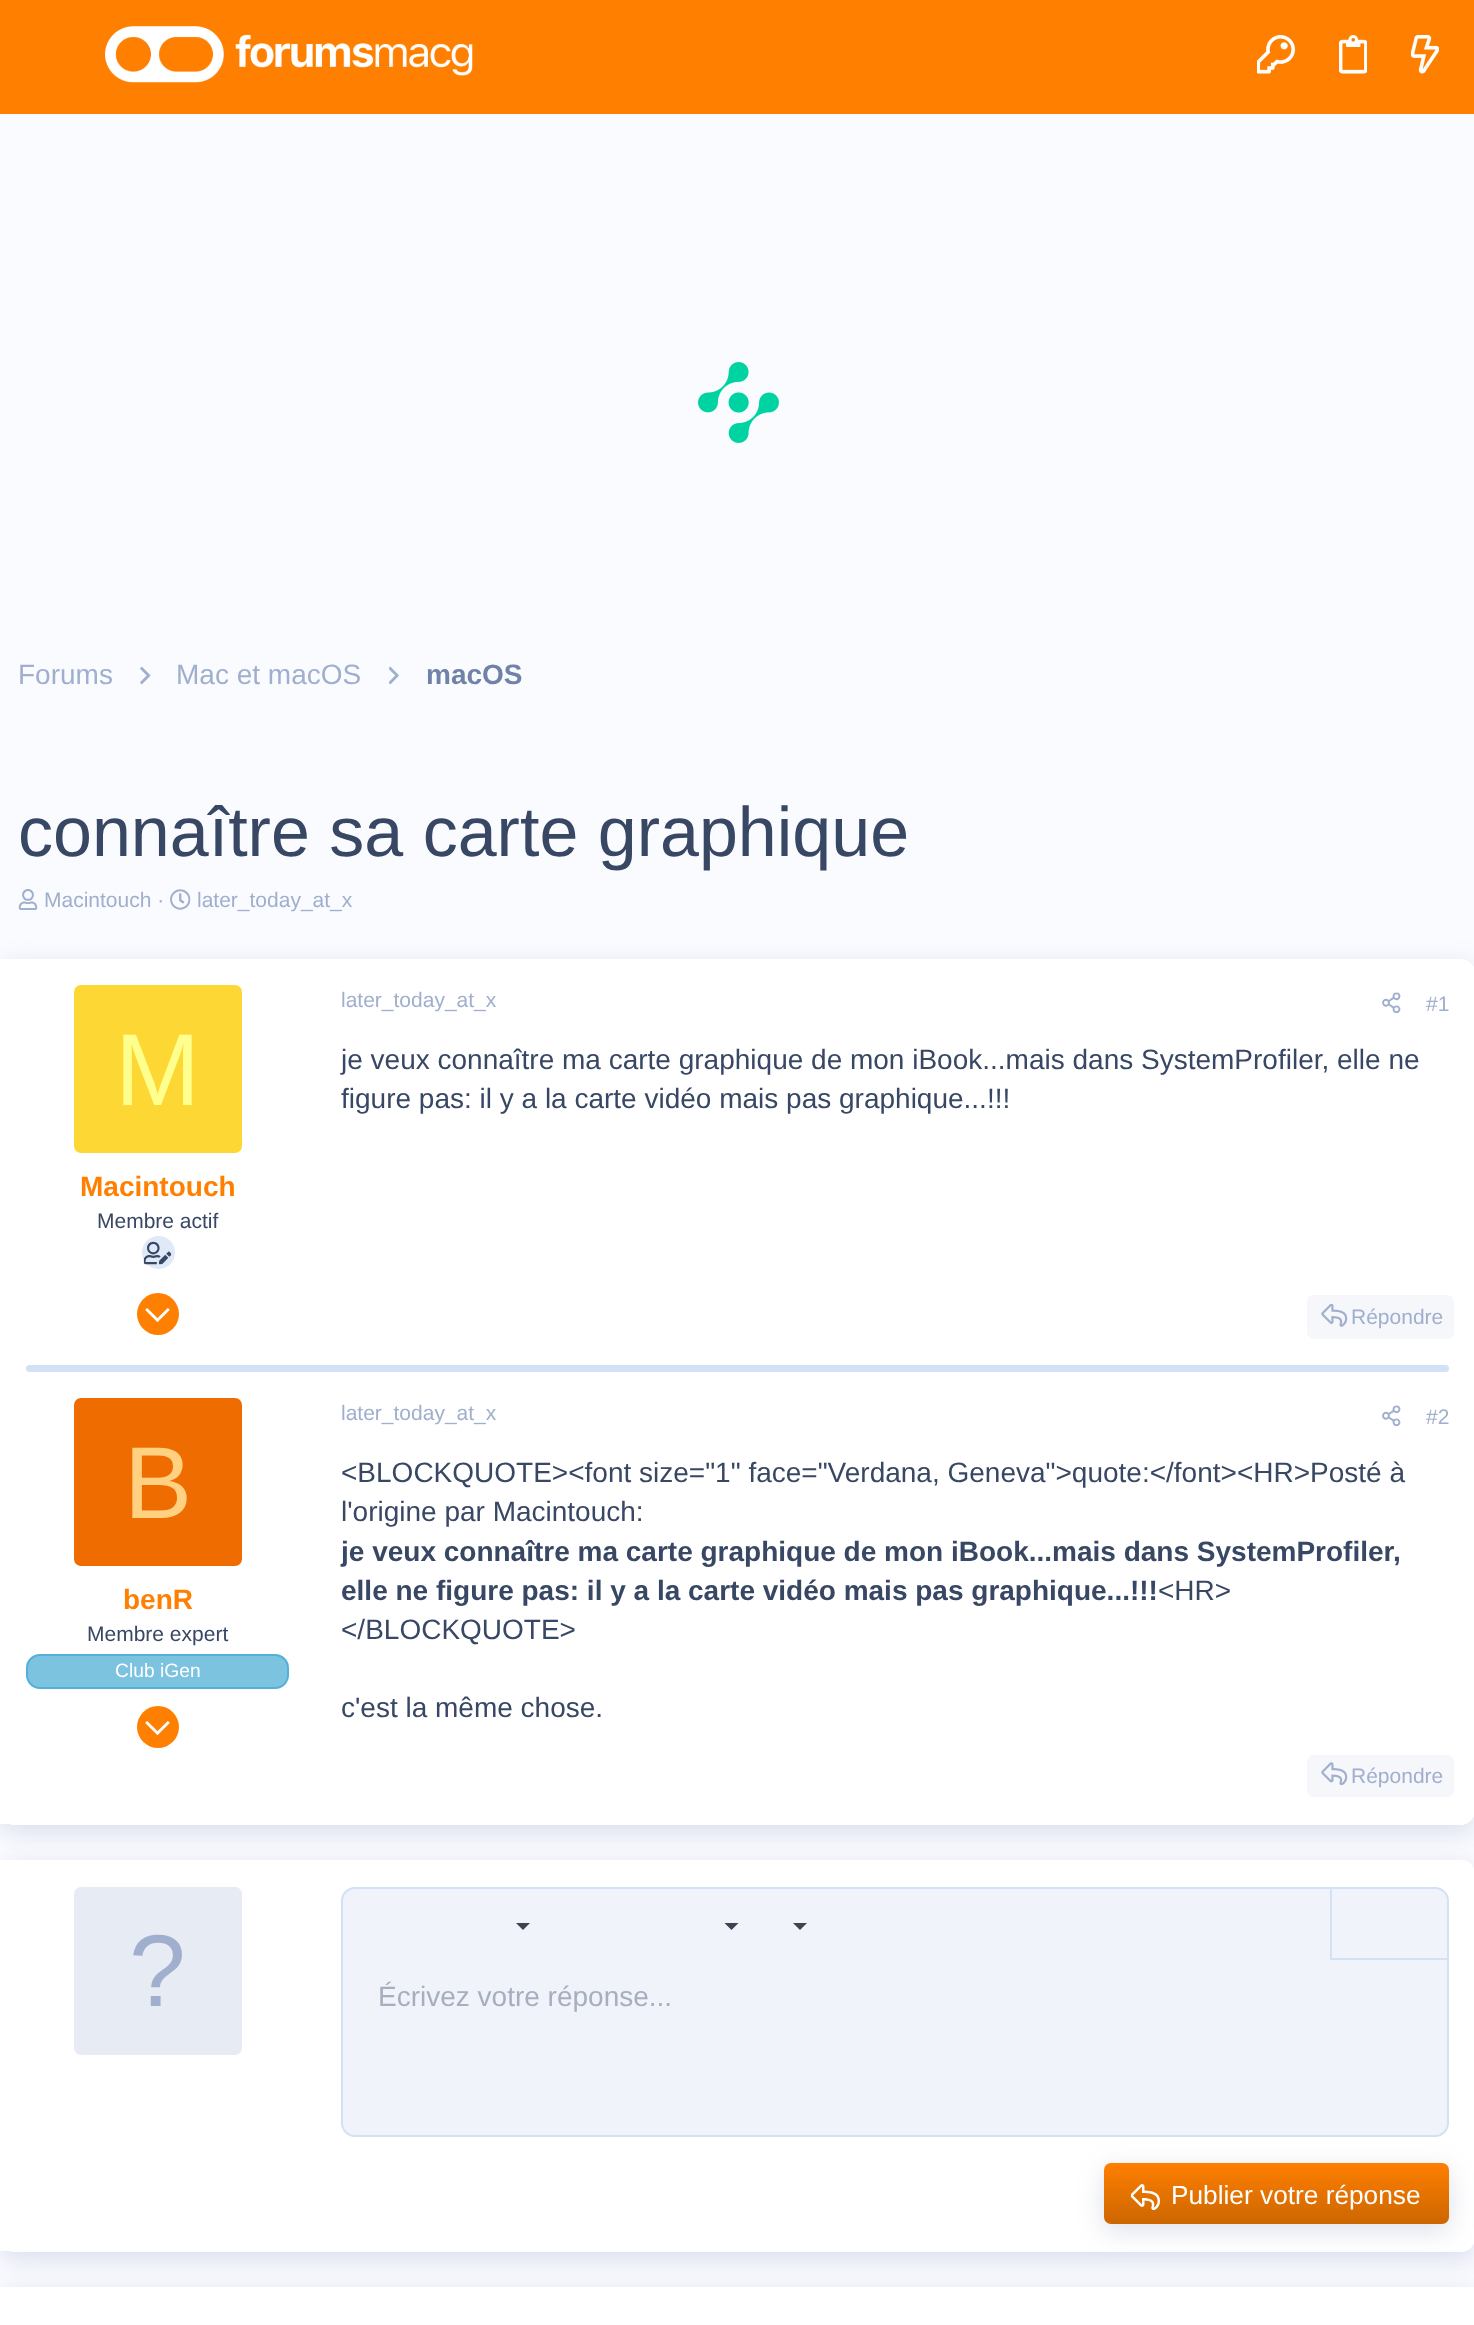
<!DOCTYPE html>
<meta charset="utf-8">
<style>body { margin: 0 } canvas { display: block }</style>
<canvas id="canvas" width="1474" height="2325"></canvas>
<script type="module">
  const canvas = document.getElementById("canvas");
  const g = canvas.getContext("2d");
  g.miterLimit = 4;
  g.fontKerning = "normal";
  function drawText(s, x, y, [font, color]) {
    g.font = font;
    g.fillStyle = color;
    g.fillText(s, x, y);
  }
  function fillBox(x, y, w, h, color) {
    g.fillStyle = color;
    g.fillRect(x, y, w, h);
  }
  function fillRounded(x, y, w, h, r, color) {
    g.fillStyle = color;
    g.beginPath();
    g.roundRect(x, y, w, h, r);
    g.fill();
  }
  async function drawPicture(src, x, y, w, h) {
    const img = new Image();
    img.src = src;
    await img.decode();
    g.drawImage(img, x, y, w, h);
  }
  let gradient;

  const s1 = ["28px Liberation Sans", "#A0AFCE"];
  const s2 = ["bold 28px Liberation Sans", "#7082A7"];
  const s3 = ["70px Liberation Sans", "#384764"];
  const s4 = ["21px Liberation Sans", "#A0AFCE"];
  const s5 = ["102px Liberation Sans", "#FFFF8D"];
  const s6 = ["bold 28px Liberation Sans", "#FF7F00"];
  const s7 = ["21px Liberation Sans", "#384764"];
  const s8 = ["28px Liberation Sans", "#384764"];
  const s9 = ["102px Liberation Sans", "#FFD180"];
  const s10 = ["19.25px Liberation Sans", "#FFFFFF"];
  const s11 = ["bold 28px Liberation Sans", "#384764"];
  const s12 = ["102px Liberation Sans", "#A0AFCE"];
  const s13 = ["28px Liberation Sans", "#A7AEBF"];
  const s14 = ["26.25px Liberation Sans", "#FFFFFF"];

  fillBox(0, 0, 1474, 2325, "#FAFBFF");
  fillBox(0, 0, 1474, 114, "#FF7F00");
  await drawPicture("pic1.png", 105, 26, 368, 57);
  await drawPicture("pic2.png", 1257, 35, 38, 39);
  await drawPicture("pic3.png", 1339, 35, 28, 39);
  await drawPicture("pic4.png", 1411, 35, 28, 39);
  await drawPicture("pic5.png", 698, 362, 81, 81);
  drawText("Forums", 18, 684, s1);
  await drawPicture("pic6.png", 140, 666, 11, 19);
  drawText("Mac et macOS", 176, 684, s1);
  await drawPicture("pic7.png", 389, 666, 10, 19);
  drawText("macOS", 426, 684, s2);
  drawText("connaître sa carte graphique", 18, 856, s3);
  await drawPicture("pic8.png", 18, 889, 20, 21);
  drawText("Macintouch ·", 44, 907, s4);
  await drawPicture("pic9.png", 170, 889, 21, 21);
  drawText("later_today_at_x", 197, 907, s4);
  g.fillStyle = "rgba(89, 102, 153, 0.2)";
  g.filter = "blur(13px)";
  g.beginPath();
  g.roundRect(0, 966, 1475, 866, 14);
  g.fill();
  g.filter = "none";
  g.fillStyle = "#FFFFFF";
  g.beginPath();
  g.moveTo(14, 959);
  g.lineTo(1461, 959);
  g.bezierCurveTo(1468.5, 959, 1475, 965.5, 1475, 973);
  g.lineTo(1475, 1372);
  g.lineTo(0, 1372);
  g.lineTo(0, 973);
  g.bezierCurveTo(0, 965.5, 6.5, 959, 14, 959);
  g.closePath();
  g.fill();
  fillBox(0, 959, 12, 12, "#FFFFFF");
  fillRounded(74, 985, 168, 168, 7, "#FDD835");
  drawText("M", 115, 1105, s5);
  drawText("Macintouch", 80, 1196, s6);
  drawText("Membre actif", 97, 1228, s7);
  g.fillStyle = "#DFE9F8";
  g.beginPath();
  g.arc(158.5, 1252.5, 16.5, 0, Math.PI * 2);
  g.fill();
  await drawPicture("pic10.png", 143, 1241, 29, 24);
  g.fillStyle = "#FF7F00";
  g.beginPath();
  g.arc(158, 1314, 21, 0, Math.PI * 2);
  g.fill();
  await drawPicture("pic11.png", 145, 1308, 25, 14);
  drawText("later_today_at_x", 341, 1007, s4);
  await drawPicture("pic12.png", 1382, 992, 19, 21);
  drawText("#1", 1426, 1011, s4);
  drawText("je veux connaître ma carte graphique de mon iBook...mais dans SystemProfiler, elle ne", 341, 1069, s8);
  drawText("figure pas: il y a la carte vidéo mais pas graphique...!!!", 341, 1108, s8);
  fillRounded(1307, 1295, 147, 44, 7, "#F6F7FA");
  await drawPicture("pic13.png", 1321, 1304, 27, 23);
  drawText("Répondre", 1351, 1324, s4);
  fillRounded(26, 1365, 1423, 7, 3.5, "#D3E1F6");
  g.fillStyle = "#FFFFFF";
  g.beginPath();
  g.moveTo(0, 1372);
  g.lineTo(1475, 1372);
  g.lineTo(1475, 1811);
  g.bezierCurveTo(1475, 1818.5, 1468.5, 1825, 1461, 1825);
  g.lineTo(14, 1825);
  g.bezierCurveTo(6.5, 1825, 0, 1818.5, 0, 1811);
  g.closePath();
  g.fill();
  fillBox(0, 1812, 9, 12, "#FFFFFF");
  fillRounded(74, 1398, 168, 168, 7, "#EF6C00");
  drawText("B", 124, 1518, s9);
  drawText("benR", 123, 1609, s6);
  drawText("Membre expert", 87, 1641, s7);
  g.fillStyle = "#7CC3E0";
  g.beginPath();
  g.roundRect(27, 1655, 261, 33, 13);
  g.fill();
  g.strokeStyle = "#53B0D6";
  g.lineWidth = 2;
  g.stroke();
  drawText("Club iGen", 115, 1677, s10);
  g.fillStyle = "#FF7F00";
  g.beginPath();
  g.arc(158, 1727, 21, 0, Math.PI * 2);
  g.fill();
  await drawPicture("pic11.png", 145, 1721, 25, 14);
  drawText("later_today_at_x", 341, 1420, s4);
  await drawPicture("pic12.png", 1382, 1405, 19, 21);
  drawText("#2", 1426, 1424, s4);
  drawText("<BLOCKQUOTE><font size=\"1\" face=\"Verdana, Geneva\">quote:<\/font><HR>Posté à", 341, 1482, s8);
  drawText("l'origine par Macintouch:", 341, 1521, s8);
  drawText("je veux connaître ma carte graphique de mon iBook...mais dans SystemProfiler,", 341, 1561, s11);
  drawText("elle ne figure pas: il y a la carte vidéo mais pas graphique...!!!", 341, 1600, s11);
  drawText("<HR>", 1158, 1600, s8);
  drawText("<\/BLOCKQUOTE>", 341, 1639, s8);
  drawText("c'est la même chose.", 341, 1717, s8);
  fillRounded(1307, 1755, 147, 42, 7, "#F6F7FA");
  await drawPicture("pic14.png", 1321, 1762, 27, 23);
  drawText("Répondre", 1351, 1783, s4);
  g.fillStyle = "rgba(89, 102, 153, 0.2)";
  g.filter = "blur(13px)";
  g.beginPath();
  g.roundRect(0, 1867, 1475, 392, 14);
  g.fill();
  g.filter = "none";
  fillRounded(0, 1860, 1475, 392, 14, "#FFFFFF");
  fillBox(0, 1860, 12, 391, "#FFFFFF");
  fillRounded(74, 1887, 168, 168, 7, "#E7EBF3");
  drawText("?", 129, 2006, s12);
  g.fillStyle = "#F1F3FB";
  g.beginPath();
  g.roundRect(342, 1888, 1106, 248, 13);
  g.fill();
  g.strokeStyle = "#D3E1F6";
  g.stroke();
  g.fillStyle = "#3D4351";
  g.beginPath();
  g.moveTo(516, 1923);
  g.lineTo(530, 1923);
  g.lineTo(523, 1930);
  g.closePath();
  g.fill();
  g.beginPath();
  g.moveTo(724.5, 1923);
  g.lineTo(738.5, 1923);
  g.lineTo(731.5, 1930);
  g.closePath();
  g.fill();
  g.beginPath();
  g.moveTo(793, 1923);
  g.lineTo(807, 1923);
  g.lineTo(800, 1930);
  g.closePath();
  g.fill();
  fillBox(1330, 1958, 117, 2, "#D3E1F6");
  fillBox(1330, 1888, 2, 72, "#D3E1F6");
  drawText("Écrivez votre réponse...", 378, 2006, s13);
  g.fillStyle = "rgba(89, 102, 153, 0.2)";
  g.filter = "blur(13px)";
  g.beginPath();
  g.roundRect(1104, 2170, 345, 61, 7);
  g.fill();
  g.filter = "none";
  gradient = g.createLinearGradient(1277, 2163, 1277, 2224);
  gradient.addColorStop(0, "#FF7F00");
  gradient.addColorStop(1, "#CC6600");
  g.fillStyle = gradient;
  g.beginPath();
  g.roundRect(1104, 2163, 345, 61, 7);
  g.fill();
  await drawPicture("pic15.png", 1130, 2184, 30, 26);
  drawText("Publier votre réponse", 1171, 2204, s14);
  g.fillStyle = "rgba(89, 102, 153, 0.2)";
  g.filter = "blur(13px)";
  g.beginPath();
  g.rect(0, 2294, 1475, 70);
  g.fill();
  g.filter = "none";
  fillBox(0, 2287, 1474, 38, "#FFFFFF");
</script>
